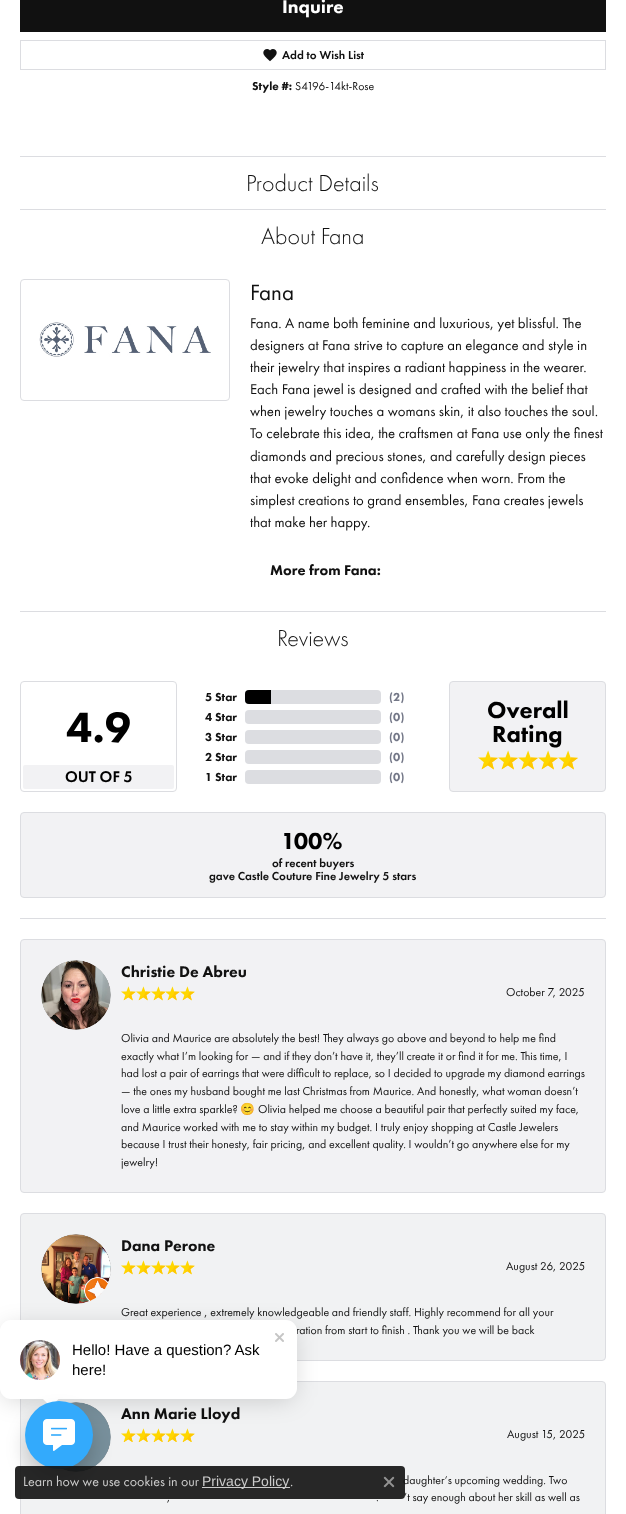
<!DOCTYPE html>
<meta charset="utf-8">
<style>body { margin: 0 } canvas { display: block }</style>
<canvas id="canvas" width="626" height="1514"></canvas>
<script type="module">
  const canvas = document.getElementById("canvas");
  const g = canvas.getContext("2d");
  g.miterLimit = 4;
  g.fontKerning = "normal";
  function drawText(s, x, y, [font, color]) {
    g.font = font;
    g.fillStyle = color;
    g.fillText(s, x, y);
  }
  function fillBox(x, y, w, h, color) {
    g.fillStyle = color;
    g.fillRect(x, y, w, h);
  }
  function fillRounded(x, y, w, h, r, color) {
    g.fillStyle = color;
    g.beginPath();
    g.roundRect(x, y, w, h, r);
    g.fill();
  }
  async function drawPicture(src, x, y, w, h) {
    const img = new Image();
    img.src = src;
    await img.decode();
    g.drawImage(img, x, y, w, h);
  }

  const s1 = ["900 19px Futura PT", "#FFFFFF"];
  const s2 = ["500 12px Futura PT", "#111111"];
  const s3 = ["900 11.85px Futura PT", "#111111"];
  const s4 = ["11.85px Futura PT", "#111111"];
  const s5 = ["300 24px Futura PT", "#111111"];
  const s6 = ["23px Futura PT", "#111111"];
  const s7 = ["14.75px Futura PT", "#111111"];
  const s8 = ["900 14.75px Futura PT", "#111111"];
  const s9 = ["900 44px Futura PT", "#000000"];
  const s10 = ["500 16px Futura PT", "#000000"];
  const s11 = ["900 12px Futura PT", "#111111"];
  const s12 = ["900 12px Futura PT", "#737787"];
  const s13 = ["900 24px Futura PT", "#000000"];
  const s14 = ["900 16px Futura PT", "#111111"];
  const s15 = ["11.85px Noto Color Emoji", "#111111"];
  const s16 = ["15px Liberation Sans", "#000000"];
  const s17 = ["14px Futura PT", "#CCCCCC"];
  const s18 = ["14px Liberation Sans", "#CCCCCC"];

  fillBox(0, 0, 626, 1514, "#FFFFFF");
  fillBox(20, 0, 586, 32, "#111111");
  drawText("Inquire", 282, 13, s1);
  g.strokeStyle = "#DCDDE1";
  g.strokeRect(20.5, 40.5, 585, 29);
  await drawPicture("pic1.png", 263, 49, 14, 13);
  drawText("Add to Wish List", 282, 59, s2);
  drawText("Style #:", 252, 90, s3);
  drawText("S4196-14kt-Rose", 295, 90, s4);
  fillBox(20, 156, 586, 1, "#DCDDE1");
  drawText("Product Details", 246, 191, s5);
  fillBox(20, 209, 586, 1, "#DCDDE1");
  drawText("About Fana", 261, 244, s5);
  g.beginPath();
  g.roundRect(20.5, 279.5, 209, 121, 3.5);
  g.stroke();
  await drawPicture("pic2.png", 39, 322, 172, 35);
  drawText("Fana", 250, 300, s6);
  drawText("Fana. A name both feminine and luxurious, yet blissful. The", 250, 328, s7);
  drawText("designers at Fana strive to capture an elegance and style in", 250, 350, s7);
  drawText("their jewelry that inspires a radiant happiness in the wearer.", 250, 372, s7);
  drawText("Each Fana jewel is designed and crafted with the belief that", 250, 394, s7);
  drawText("when jewelry touches a womans skin, it also touches the soul.", 250, 416, s7);
  drawText("To celebrate this idea, the craftsmen at Fana use only the finest", 250, 438, s7);
  drawText("diamonds and precious stones, and carefully design pieces", 250, 461, s7);
  drawText("that evoke delight and confidence when worn. From the", 250, 483, s7);
  drawText("simplest creations to grand ensembles, Fana creates jewels", 250, 505, s7);
  drawText("that make her happy.", 250, 527, s7);
  drawText("More from Fana:", 270, 575, s8);
  fillBox(20, 611, 586, 1, "#DCDDE1");
  drawText("Reviews", 277, 646, s5);
  g.beginPath();
  g.roundRect(20.5, 681.5, 156, 110, 3.5);
  g.stroke();
  drawText("4.9", 66, 742, s9);
  fillRounded(23, 765, 151, 24, 2, "#F2F2F4");
  drawText("OUT OF 5", 65, 782, s10);
  drawText("5 Star", 205, 701, s11);
  drawText("4 Star", 205, 721, s11);
  drawText("3 Star", 205, 741, s11);
  drawText("2 Star", 205, 761, s11);
  drawText("1 Star", 205, 781, s11);
  fillRounded(245, 690, 136, 14, 4, "#DCDDE1");
  g.fillStyle = "#000000";
  g.beginPath();
  g.roundRect(245, 690, 26, 14, [4, 0, 0, 4]);
  g.fill();
  fillRounded(245, 710, 136, 14, 4, "#DCDDE1");
  fillRounded(245, 730, 136, 14, 4, "#DCDDE1");
  fillRounded(245, 750, 136, 14, 4, "#DCDDE1");
  fillRounded(245, 770, 136, 14, 4, "#DCDDE1");
  drawText("(2)", 389, 701, s12);
  drawText("(0)", 389, 721, s12);
  drawText("(0)", 389, 741, s12);
  drawText("(0)", 389, 761, s12);
  drawText("(0)", 389, 781, s12);
  g.fillStyle = "#F2F2F4";
  g.beginPath();
  g.roundRect(449.5, 681.5, 156, 110, 3.5);
  g.fill();
  g.stroke();
  drawText("Overall", 487, 718, s13);
  drawText("Rating", 492, 742, s13);
  await drawPicture("pic3.png", 478, 750, 20, 20);
  await drawPicture("pic3.png", 498, 750, 20, 20);
  await drawPicture("pic3.png", 518, 750, 20, 20);
  await drawPicture("pic3.png", 538, 750, 20, 20);
  await drawPicture("pic3.png", 558, 750, 20, 20);
  g.fillStyle = "#F2F2F4";
  g.beginPath();
  g.roundRect(20.5, 812.5, 585, 85, 3.5);
  g.fill();
  g.stroke();
  drawText("100%", 281, 849, s13);
  drawText("of recent buyers", 272, 867, s2);
  drawText("gave Castle Couture Fine Jewelry 5 stars", 209, 880, s2);
  fillBox(20, 918, 586, 1, "#DCDDE1");
  g.fillStyle = "#F2F2F4";
  g.beginPath();
  g.roundRect(20.5, 939.5, 585, 253, 3.5);
  g.fill();
  g.stroke();
  await drawPicture("pic4.png", 41, 960, 70, 70);
  drawText("Christie De Abreu", 121, 977, s14);
  await drawPicture("pic5.png", 121, 986, 15, 15);
  await drawPicture("pic5.png", 136, 986, 15, 15);
  await drawPicture("pic6.png", 151, 986, 14, 15);
  await drawPicture("pic5.png", 165, 986, 15, 15);
  await drawPicture("pic5.png", 180, 986, 15, 15);
  drawText("October 7, 2025", 506, 996, s4);
  drawText("Olivia and Maurice are absolutely the best! They always go above and beyond to help me find", 121, 1042, s4);
  drawText("exactly what I’m looking for — and if they don’t have it, they’ll create it or find it for me. This time, I", 121, 1060, s4);
  drawText("had lost a pair of earrings that were difficult to replace, so I decided to upgrade my diamond earrings", 121, 1077, s4);
  drawText("— the ones my husband bought me last Christmas from Maurice. And honestly, what woman doesn’t", 121, 1095, s4);
  drawText("love a little extra sparkle?", 121, 1113, s4);
  drawText("😊", 240, 1113, s15);
  drawText("Olivia helped me choose a beautiful pair that perfectly suited my face,", 258, 1113, s4);
  drawText("and Maurice worked with me to stay within my budget. I truly enjoy shopping at Castle Jewelers", 121, 1131, s4);
  drawText("because I trust their honesty, fair pricing, and excellent quality. I wouldn’t go anywhere else for my", 121, 1148, s4);
  drawText("jewelry!", 121, 1166, s4);
  g.fillStyle = "#F1F2F3";
  g.beginPath();
  g.roundRect(20.5, 1213.5, 585, 147, 3.5);
  g.fill();
  g.stroke();
  await drawPicture("pic7.png", 41, 1234, 70, 70);
  drawText("Dana Perone", 121, 1251, s14);
  await drawPicture("pic8.png", 121, 1260, 15, 15);
  await drawPicture("pic8.png", 136, 1260, 15, 15);
  await drawPicture("pic9.png", 151, 1260, 14, 15);
  await drawPicture("pic8.png", 165, 1260, 15, 15);
  await drawPicture("pic8.png", 180, 1260, 15, 15);
  drawText("August 26, 2025", 506, 1270, s4);
  drawText("Great experience , extremely knowledgeable and friendly staff. Highly recommend for all your", 121, 1316, s4);
  drawText("ration from start to finish . Thank you we will be back", 296, 1334, s4);
  g.fillStyle = "#F1F2F3";
  g.beginPath();
  g.roundRect(20.5, 1381.5, 585, 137, 3.5);
  g.fill();
  g.stroke();
  await drawPicture("pic10.png", 61, 1402, 50, 70);
  drawText("Ann Marie Lloyd", 121, 1419, s14);
  await drawPicture("pic11.png", 121, 1428, 15, 14);
  await drawPicture("pic11.png", 136, 1428, 15, 14);
  await drawPicture("pic12.png", 151, 1428, 14, 14);
  await drawPicture("pic11.png", 165, 1428, 15, 14);
  await drawPicture("pic11.png", 180, 1428, 15, 14);
  drawText("August 15, 2025", 507, 1438, s4);
  drawText("daughter‘s upcoming wedding. Two", 403, 1484, s4);
  drawText(",", 167, 1501, s4);
  drawText(".", 376, 1501, s4);
  drawText("’t say enough about her skill as well as", 404, 1501, s4);
  g.fillStyle = "rgba(0, 0, 0, 0.18)";
  g.filter = "blur(12px)";
  g.beginPath();
  g.roundRect(4, 1328, 289, 71, 7);
  g.fill();
  g.filter = "none";
  fillRounded(0, 1320, 297, 79, 11, "#FFFFFF");
  await drawPicture("pic13.png", 275, 1333, 9, 9);
  await drawPicture("pic14.png", 20, 1340, 40, 40);
  drawText("Hello! Have a question? Ask", 72, 1355, s16);
  drawText("here!", 72, 1375, s16);
  g.fillStyle = "#FFFFFF";
  g.beginPath();
  g.moveTo(40, 1396);
  g.lineTo(48, 1404);
  g.bezierCurveTo(50.5, 1406.5, 51, 1406.5, 53.5, 1404);
  g.lineTo(61.5, 1396);
  g.closePath();
  g.fill("evenodd");
  g.fillStyle = "rgba(0, 0, 0, 0.18)";
  g.filter = "blur(9.5px)";
  g.beginPath();
  g.roundRect(25, 1413, 68, 68, 34);
  g.fill();
  g.filter = "none";
  g.fillStyle = "#33AAFC";
  g.beginPath();
  g.arc(59, 1435, 34, 0, Math.PI * 2);
  g.fill();
  await drawPicture("pic15.png", 43, 1419, 32, 32);
  fillRounded(15, 1466, 390, 33, 4, "rgba(17, 17, 17, 0.9)");
  drawText("Learn how we use cookies in our", 23, 1486, s17);
  fillBox(202, 1487, 88, 1, "#CCCCCC");
  drawText("Privacy Policy", 202, 1486, s18);
  drawText(".", 290, 1486, s17);
  await drawPicture("pic16.png", 383, 1476, 12, 12);
</script>
